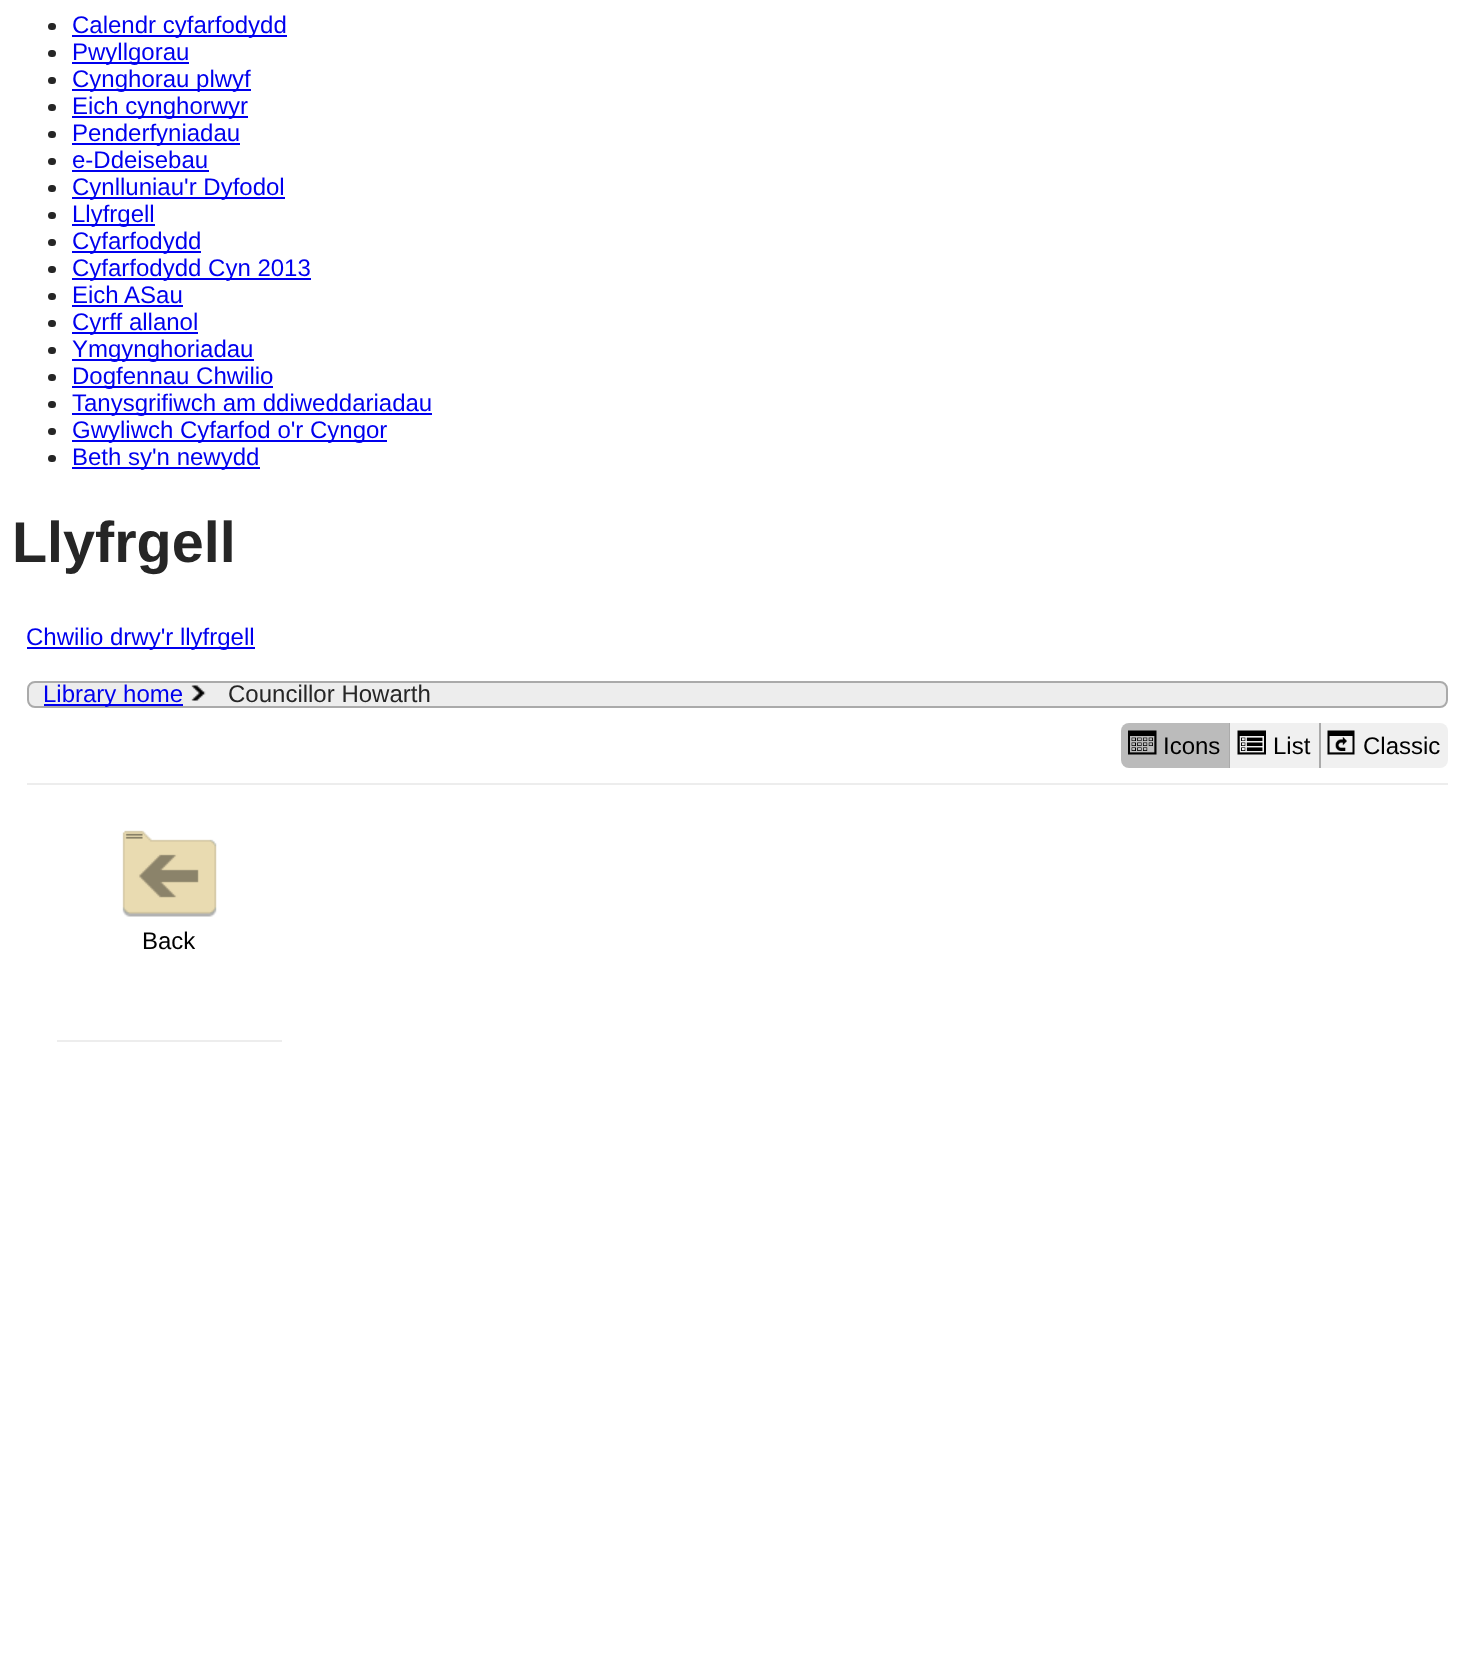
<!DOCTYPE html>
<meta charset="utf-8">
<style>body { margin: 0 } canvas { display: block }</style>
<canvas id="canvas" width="1459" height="1666"></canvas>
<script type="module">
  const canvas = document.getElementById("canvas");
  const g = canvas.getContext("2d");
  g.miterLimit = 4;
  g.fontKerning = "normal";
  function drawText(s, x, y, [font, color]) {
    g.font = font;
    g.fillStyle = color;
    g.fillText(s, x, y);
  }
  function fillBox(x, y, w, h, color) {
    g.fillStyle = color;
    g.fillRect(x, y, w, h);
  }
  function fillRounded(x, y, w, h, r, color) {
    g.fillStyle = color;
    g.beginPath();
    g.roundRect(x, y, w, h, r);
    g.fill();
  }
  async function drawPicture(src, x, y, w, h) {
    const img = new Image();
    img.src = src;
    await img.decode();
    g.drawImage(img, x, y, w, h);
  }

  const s1 = ["24px Liberation Sans", "#0000EE"];
  const s2 = ["bold 57.5px Liberation Sans", "#262626"];
  const s3 = ["24px Liberation Sans", "#262626"];
  const s4 = ["24px Liberation Sans", "#000000"];

  fillBox(0, 0, 1459, 1666, "#FFFFFF");
  fillRounded(48, 23, 8, 7, 3.5, "#262626");
  fillBox(72, 35, 215, 2, "#0000EE");
  drawText("Calendr cyfarfodydd", 72, 33, s1);
  fillRounded(48, 50, 8, 7, 3.5, "#262626");
  fillBox(72, 62, 117, 2, "#0000EE");
  drawText("Pwyllgorau", 72, 60, s1);
  fillRounded(48, 77, 8, 7, 3.5, "#262626");
  fillBox(72, 89, 179, 2, "#0000EE");
  drawText("Cynghorau plwyf", 72, 87, s1);
  fillRounded(48, 104, 8, 7, 3.5, "#262626");
  fillBox(72, 116, 176, 2, "#0000EE");
  drawText("Eich cynghorwyr", 72, 114, s1);
  fillRounded(48, 131, 8, 7, 3.5, "#262626");
  fillBox(72, 143, 168, 2, "#0000EE");
  drawText("Penderfyniadau", 72, 141, s1);
  fillRounded(48, 158, 8, 7, 3.5, "#262626");
  drawText("e-Ddeisebau", 72, 168, s1);
  fillBox(72, 170, 137, 2, "#0000EE");
  fillRounded(48, 185, 8, 7, 3.5, "#262626");
  fillBox(72, 197, 213, 2, "#0000EE");
  drawText("Cynlluniau'r Dyfodol", 72, 195, s1);
  fillRounded(48, 212, 8, 7, 3.5, "#262626");
  fillBox(72, 224, 83, 2, "#0000EE");
  drawText("Llyfrgell", 72, 222, s1);
  fillRounded(48, 239, 8, 7, 3.5, "#262626");
  fillBox(72, 251, 129, 2, "#0000EE");
  drawText("Cyfarfodydd", 72, 249, s1);
  fillRounded(48, 266, 8, 7, 3.5, "#262626");
  fillBox(72, 278, 239, 2, "#0000EE");
  drawText("Cyfarfodydd Cyn 2013", 72, 276, s1);
  fillRounded(48, 293, 8, 7, 3.5, "#262626");
  drawText("Eich ASau", 72, 303, s1);
  fillBox(72, 305, 111, 2, "#0000EE");
  fillRounded(48, 320, 8, 7, 3.5, "#262626");
  fillBox(72, 332, 126, 2, "#0000EE");
  drawText("Cyrff allanol", 72, 330, s1);
  fillRounded(48, 347, 8, 7, 3.5, "#262626");
  fillBox(72, 359, 182, 2, "#0000EE");
  drawText("Ymgynghoriadau", 72, 357, s1);
  fillRounded(48, 374, 8, 7, 3.5, "#262626");
  fillBox(72, 386, 201, 2, "#0000EE");
  drawText("Dogfennau Chwilio", 72, 384, s1);
  fillRounded(48, 401, 8, 7, 3.5, "#262626");
  fillBox(72, 413, 360, 2, "#0000EE");
  drawText("Tanysgrifiwch am ddiweddariadau", 72, 411, s1);
  fillRounded(48, 428, 8, 7, 3.5, "#262626");
  fillBox(72, 440, 315, 2, "#0000EE");
  drawText("Gwyliwch Cyfarfod o'r Cyngor", 72, 438, s1);
  fillRounded(48, 455, 8, 7, 3.5, "#262626");
  fillBox(72, 467, 188, 2, "#0000EE");
  drawText("Beth sy'n newydd", 72, 465, s1);
  drawText("Llyfrgell", 12, 562, s2);
  fillBox(27, 647, 228, 2, "#0000EE");
  drawText("Chwilio drwy'r llyfrgell", 26, 645, s1);
  g.fillStyle = "#EDEDED";
  g.beginPath();
  g.roundRect(28, 682, 1419, 25, 7);
  g.fill();
  g.strokeStyle = "#AAAAAA";
  g.lineWidth = 2;
  g.stroke();
  fillBox(44, 704, 139, 2, "#0000EE");
  drawText("Library home", 43, 702, s1);
  await drawPicture("pic1.png", 191, 685, 15, 16);
  drawText("Councillor Howarth", 228, 702, s3);
  g.fillStyle = "#BBBBBB";
  g.beginPath();
  g.roundRect(1121, 723, 109, 45, [8, 0, 0, 8]);
  g.fill();
  fillBox(1229, 723, 1, 45, "#AAAAAA");
  await drawPicture("pic2.png", 1128, 730, 29, 25);
  drawText("Icons", 1163, 754, s4);
  fillBox(1230, 723, 89, 45, "#F0F0F0");
  await drawPicture("pic3.png", 1237, 730, 29, 25);
  drawText("List", 1273, 754, s4);
  g.fillStyle = "#F0F0F0";
  g.beginPath();
  g.roundRect(1319, 723, 129, 45, [0, 8, 8, 0]);
  g.fill();
  fillBox(1319, 723, 2, 45, "#AAAAAA");
  await drawPicture("pic4.png", 1327, 730, 28, 25);
  drawText("Classic", 1363, 754, s4);
  fillBox(27, 783, 1421, 2, "#EDEDED");
  fillBox(57, 1040, 225, 2, "#EDEDED");
  await drawPicture("pic5.png", 122, 830, 95, 87);
  drawText("Back", 142, 949, s4);
</script>
